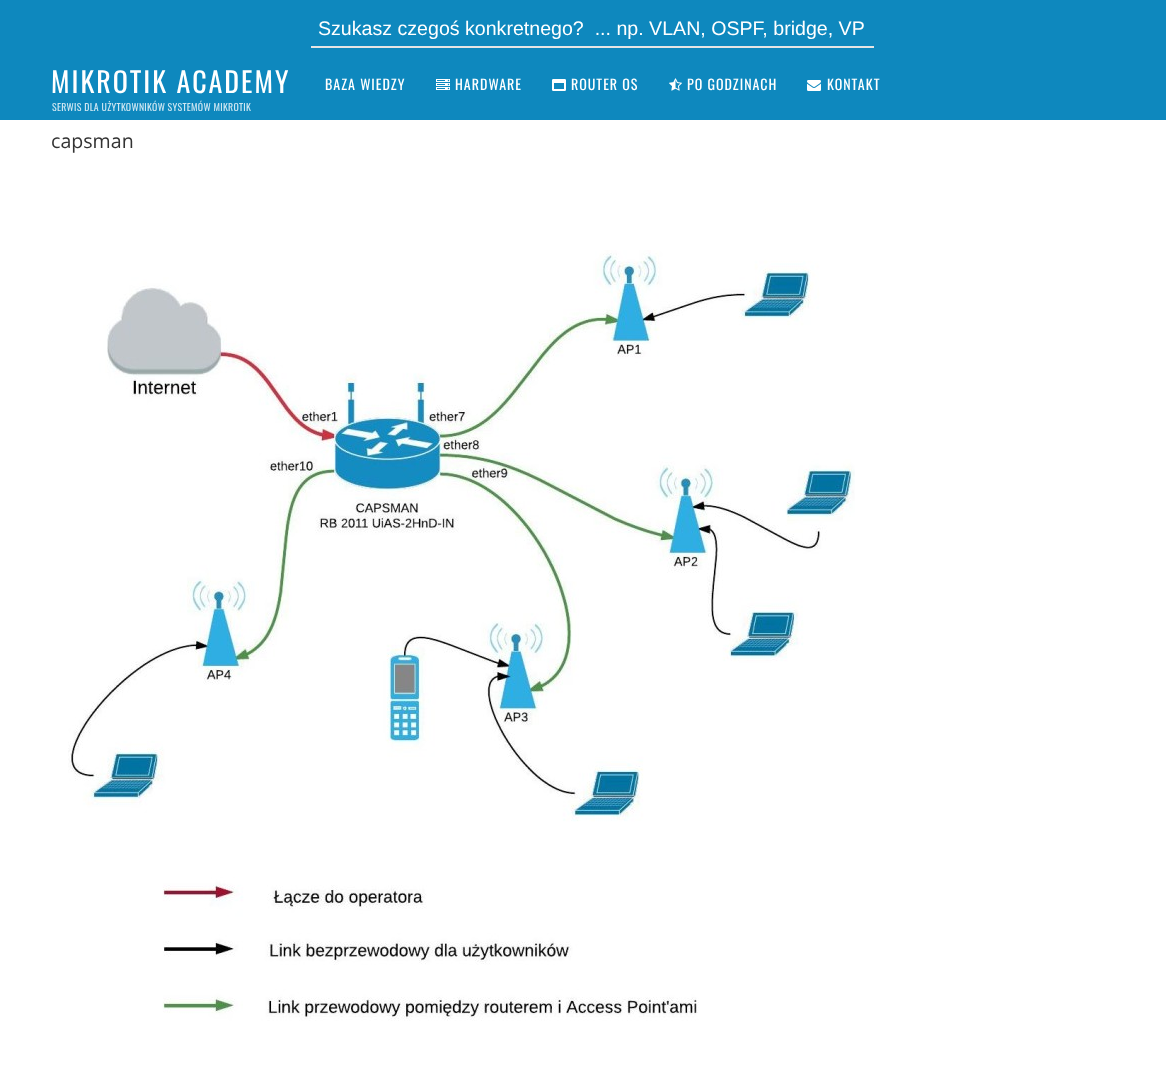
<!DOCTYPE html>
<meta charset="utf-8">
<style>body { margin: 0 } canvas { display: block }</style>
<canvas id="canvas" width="1166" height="1071"></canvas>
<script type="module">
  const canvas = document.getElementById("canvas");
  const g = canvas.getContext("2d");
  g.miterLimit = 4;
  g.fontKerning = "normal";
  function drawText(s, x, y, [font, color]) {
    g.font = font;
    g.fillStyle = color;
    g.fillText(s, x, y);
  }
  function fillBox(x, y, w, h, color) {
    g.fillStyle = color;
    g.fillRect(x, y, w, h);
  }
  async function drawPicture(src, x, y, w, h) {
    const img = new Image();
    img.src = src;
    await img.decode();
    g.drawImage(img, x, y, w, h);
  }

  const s1 = ["19.6px Liberation Sans", "#FFFFFF"];
  const s2 = ["28px Oswald", "#FFFFFF"];
  const s3 = ["9.8px Oswald", "#CFE7F2"];
  const s4 = ["14px Oswald", "#FFFFFF"];
  const s5 = ["19.6px Open Sans", "#333333"];

  fillBox(0, 0, 1166, 1071, "#FFFFFF");
  fillBox(0, 0, 1166, 120, "#0E88BE");
  fillBox(311, 46, 563, 2, "#E5E5E5");
  drawText("Szukasz czegoś konkretnego?  ... np. VLAN, OSPF, bridge, VP", 318, 35, s1);
  g.letterSpacing = "2px";
  drawText("MIKROTIK ACADEMY", 51, 93, s2);
  g.letterSpacing = "0.3px";
  drawText("SERWIS DLA UŻYTKOWNIKÓW SYSTEMÓW MIKROTIK", 52, 111, s3);
  g.letterSpacing = "1px";
  drawText("BAZA WIEDZY", 325, 90, s4);
  await drawPicture("pic1.png", 436, 79, 14, 11);
  drawText("HARDWARE", 455, 90, s4);
  await drawPicture("pic2.png", 552, 79, 14, 12);
  drawText("ROUTER OS", 571, 90, s4);
  await drawPicture("pic3.png", 669, 78, 13, 13);
  drawText("PO GODZINACH", 687, 90, s4);
  await drawPicture("pic4.png", 807, 80, 14, 11);
  drawText("KONTAKT", 827, 90, s4);
  g.letterSpacing = "0px";
  drawText("capsman", 51, 148, s5);
  await drawPicture("pic5.png", 68, 250, 787, 771);
</script>
